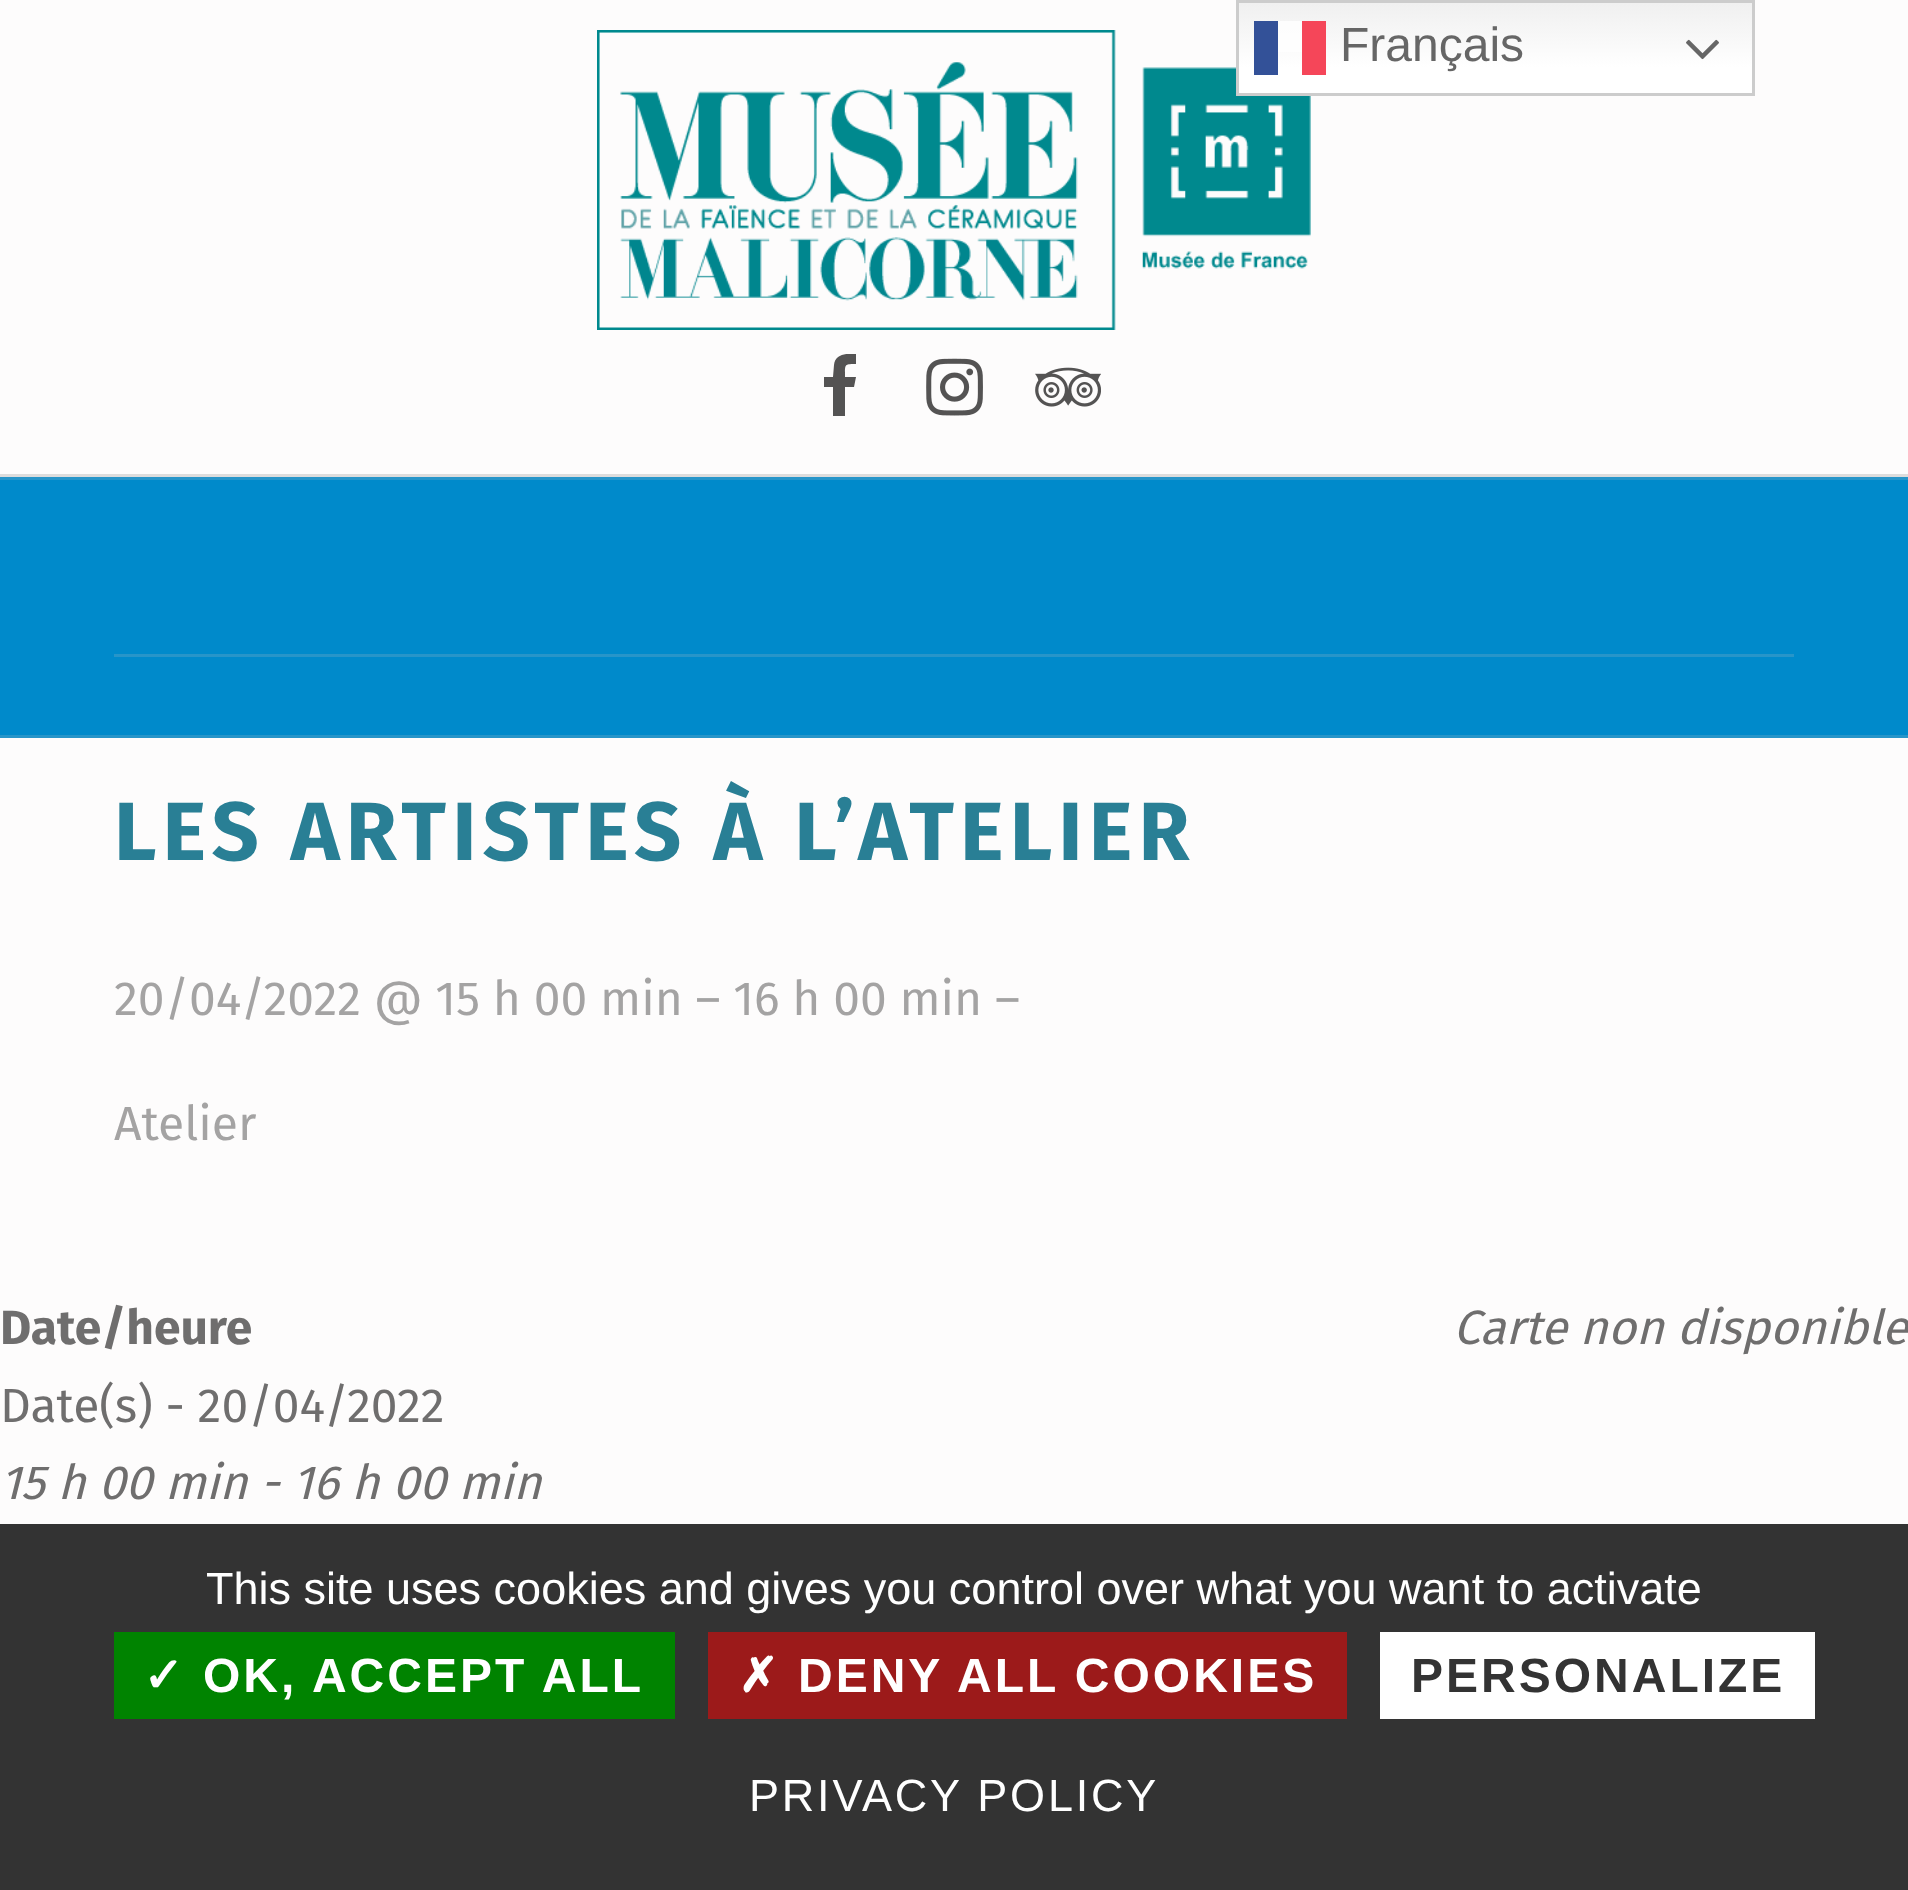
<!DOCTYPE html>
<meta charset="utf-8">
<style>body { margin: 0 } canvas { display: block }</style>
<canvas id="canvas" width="1908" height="1890"></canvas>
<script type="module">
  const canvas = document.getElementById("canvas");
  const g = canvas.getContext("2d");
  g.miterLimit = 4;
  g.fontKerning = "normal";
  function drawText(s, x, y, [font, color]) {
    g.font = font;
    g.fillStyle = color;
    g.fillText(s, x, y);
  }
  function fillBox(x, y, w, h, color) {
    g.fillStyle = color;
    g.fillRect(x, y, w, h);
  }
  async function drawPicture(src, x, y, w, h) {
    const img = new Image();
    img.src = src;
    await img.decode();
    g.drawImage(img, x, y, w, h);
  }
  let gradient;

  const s1 = ["48px Liberation Sans", "#666666"];
  const s2 = ["bold 82.7px Fira Sans", "#297F95"];
  const s3 = ["48px Fira Sans", "#A4A3A3"];
  const s4 = ["bold 48px Fira Sans", "#6F6E6E"];
  const s5 = ["48px Fira Sans", "#6F6E6E"];
  const s6 = ["italic 48px Fira Sans", "#6F6E6E"];
  const s7 = ["45px Liberation Sans", "#FFFFFF"];
  const s8 = ["bold 48px DejaVu Sans", "#FFFFFF"];
  const s9 = ["bold 48px Liberation Sans", "#FFFFFF"];
  const s10 = ["bold 48px Liberation Sans", "#333333"];

  fillBox(0, 0, 1908, 1890, "#FDFCFC");
  await drawPicture("pic2.png", 597, 30, 714, 300);
  gradient = g.createLinearGradient(1496, 0, 1496, 96);
  gradient.addColorStop(0, "#EFEFEF");
  gradient.addColorStop(0.7, "#FFFFFF");
  g.fillStyle = gradient;
  g.fillRect(1239, 3, 513, 90);
  g.strokeStyle = "#CCCCCC";
  g.lineWidth = 3;
  g.strokeRect(1237.5, 1.5, 516, 93);
  fillBox(1254, 21, 24, 54, "#335198");
  fillBox(1278, 21, 24, 31, "rgba(255, 255, 255, 0.8)");
  fillBox(1302, 21, 24, 54, "#F54659");
  drawText("Français", 1340, 61, s1);
  await drawPicture("pic1.png", 1686, 39, 33, 21);
  fillBox(0, 474, 1908, 3, "#DDDCDC");
  g.save();
  g.beginPath();
  g.rect(807, 354, 66, 66);
  g.clip();
  g.fillStyle = "#545353";
  g.beginPath();
  g.moveTo(856, 354);
  g.lineTo(856, 364);
  g.bezierCurveTo(844, 364, 845, 364, 845, 377);
  g.lineTo(856, 377);
  g.lineTo(854, 387);
  g.lineTo(845, 387);
  g.lineTo(845, 416);
  g.lineTo(833, 416);
  g.lineTo(833, 387);
  g.lineTo(824, 387);
  g.lineTo(824, 377);
  g.lineTo(833, 377);
  g.lineTo(834, 365);
  g.bezierCurveTo(835, 354, 847, 353, 856, 354);
  g.closePath();
  g.fill();
  g.restore();
  await drawPicture("pic3.png", 926, 358, 57, 58);
  await drawPicture("pic4.png", 1035, 367, 66, 40);
  fillBox(0, 480, 1908, 255, "#008ACB");
  fillBox(0, 477, 1908, 3, "#2795C9");
  fillBox(0, 735, 1908, 3, "#2795C9");
  fillBox(114, 654, 1680, 3, "#2795C9");
  g.letterSpacing = "6.2px";
  drawText("LES ARTISTES À L’ATELIER", 114, 860, s2);
  g.letterSpacing = "0px";
  drawText("20/04/2022 @ 15 h 00 min – 16 h 00 min –", 114, 1015, s3);
  drawText("Atelier", 114, 1140, s3);
  drawText("Date/heure", 0, 1344, s4);
  drawText("Date(s) - 20/04/2022", 0, 1422, s5);
  drawText("15 h 00 min - 16 h 00 min", 0, 1499, s6);
  drawText("Carte non disponible", 1453, 1344, s6);
  fillBox(0, 1524, 1908, 366, "#333333");
  drawText("This site uses cookies and gives you control over what you want to activate", 206, 1604, s7);
  fillBox(114, 1632, 561, 87, "#008300");
  g.letterSpacing = "3px";
  drawText("✓", 143, 1692, s8);
  drawText("OK, ACCEPT ALL", 203, 1692, s9);
  fillBox(708, 1632, 639, 87, "#9C1A1A");
  drawText("✗", 738, 1692, s8);
  drawText("DENY ALL COOKIES", 798, 1692, s9);
  fillBox(1380, 1632, 435, 87, "#FFFFFF");
  drawText("PERSONALIZE", 1411, 1692, s10);
  g.letterSpacing = "2.8px";
  drawText("PRIVACY POLICY", 749, 1811, s7);
</script>
